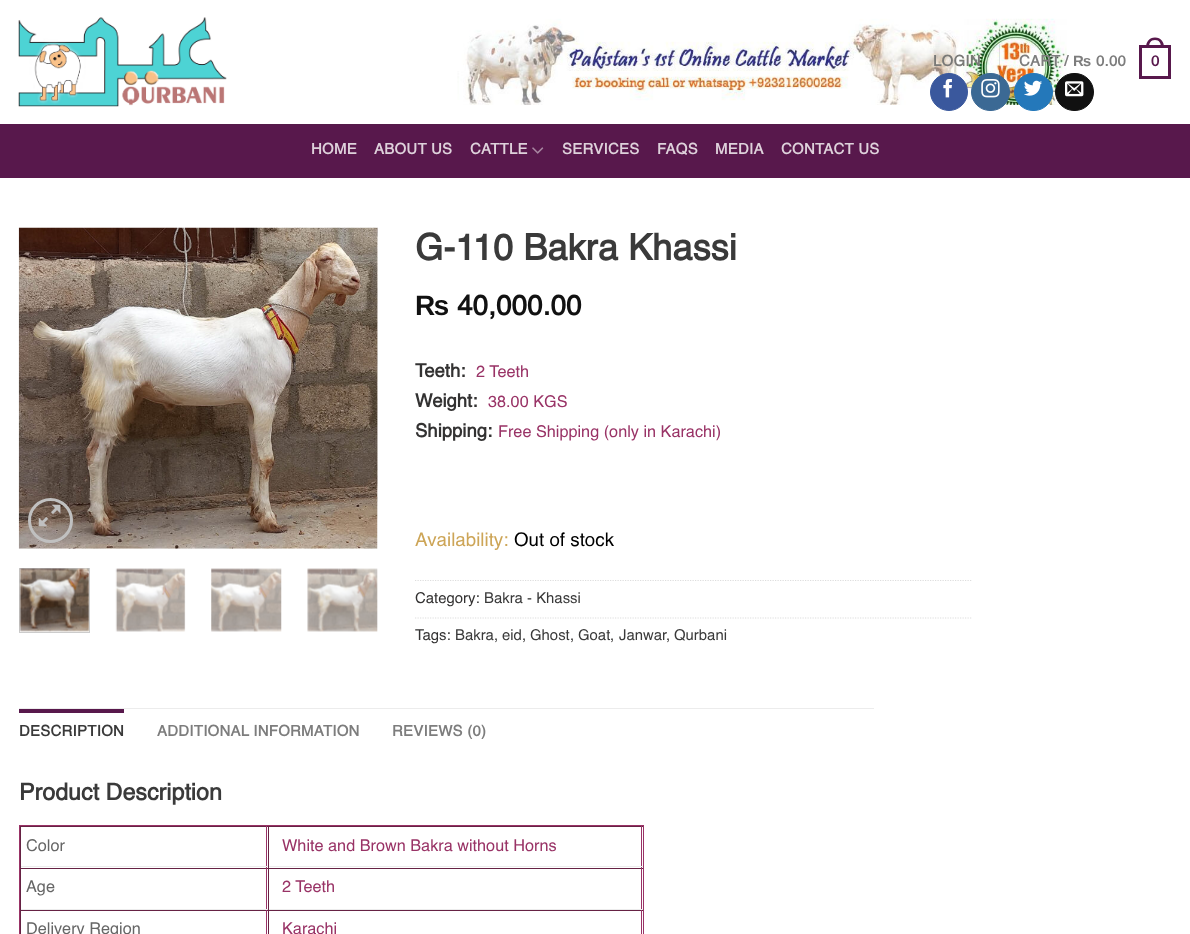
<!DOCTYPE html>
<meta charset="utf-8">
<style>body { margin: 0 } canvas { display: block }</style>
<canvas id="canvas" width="1190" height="934"></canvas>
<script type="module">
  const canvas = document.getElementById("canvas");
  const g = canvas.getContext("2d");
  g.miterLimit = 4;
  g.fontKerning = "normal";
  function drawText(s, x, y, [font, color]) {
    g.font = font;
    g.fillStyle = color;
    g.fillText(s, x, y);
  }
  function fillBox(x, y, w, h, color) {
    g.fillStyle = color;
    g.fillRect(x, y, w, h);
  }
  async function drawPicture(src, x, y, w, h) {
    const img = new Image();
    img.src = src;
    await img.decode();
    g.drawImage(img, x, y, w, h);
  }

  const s1 = ["bold 14.9px Helvetica", "#797977"];
  const s2 = ["bold 14.9px Helvetica", "#7D7D7D"];
  const s3 = ["bold 14.9px Liberation Sans", "#7D7D7D"];
  const s4 = ["bold 14.9px Helvetica", "#58184C"];
  const s5 = ["bold 14.9px Helvetica", "#DED1DB"];
  const s6 = ["bold 36.25px Helvetica", "#3A3A3A"];
  const s7 = ["bold 28px Liberation Sans", "#111111"];
  const s8 = ["bold 28px Helvetica", "#111111"];
  const s9 = ["bold 18.5px Helvetica", "#333232"];
  const s10 = ["16.25px Helvetica", "#993366"];
  const s11 = ["18.75px Helvetica", "#CDA557"];
  const s12 = ["18.75px Helvetica", "#000000"];
  const s13 = ["14.9px Helvetica", "#333232"];
  const s14 = ["14.9px Helvetica", "#3A3A3A"];
  const s15 = ["bold 14.9px Helvetica", "#3A3A3A"];
  const s16 = ["bold 23.25px Helvetica", "#3A3A3A"];
  const s17 = ["16.25px Helvetica", "#666666"];

  fillBox(0, 0, 1190, 934, "#FFFFFF");
  await drawPicture("pic1.png", 18, 17, 209, 90);
  await drawPicture("pic2.png", 457, 18, 610, 87);
  g.letterSpacing = "0.3px";
  drawText("LOGIN", 933, 66, s1);
  g.fillStyle = "#3B6994";
  g.beginPath();
  g.roundRect(971.5, 73.5, 38, 37, 18.5);
  g.fill();
  g.strokeStyle = "#3B6994";
  g.stroke();
  await drawPicture("pic4.png", 981, 79, 19, 19);
  fillBox(999, 44, 1, 37, "rgba(0, 0, 0, 0.1)");
  drawText("CART", 1019, 66, s2);
  drawText("/", 1064, 66, s2);
  drawText("₨", 1073, 66, s3);
  drawText("0.00", 1096, 66, s2);
  g.strokeStyle = "#58184C";
  g.lineWidth = 3;
  g.strokeRect(1140.5, 46.5, 29, 31);
  g.fillStyle = "#58184C";
  g.beginPath();
  g.moveTo(1155, 37.5);
  g.bezierCurveTo(1161, 37.5, 1164, 42, 1164, 47.5);
  g.lineTo(1146, 47.5);
  g.bezierCurveTo(1146, 42, 1149, 37.5, 1155, 37.5);
  g.closePath();
  g.moveTo(1155, 40);
  g.bezierCurveTo(1159.5, 40, 1161, 43.5, 1161, 47.5);
  g.lineTo(1149, 47.5);
  g.bezierCurveTo(1149, 43.5, 1150.5, 40, 1155, 40);
  g.closePath();
  g.fill("evenodd");
  drawText("0", 1151, 66, s4);
  g.fillStyle = "#3A589D";
  g.beginPath();
  g.arc(949, 92, 18.5, 0, Math.PI * 2);
  g.fill();
  g.strokeStyle = "#3A589D";
  g.lineWidth = 1;
  g.stroke();
  await drawPicture("pic3.png", 943, 79, 9, 19);
  g.fillStyle = "#2478BA";
  g.beginPath();
  g.roundRect(1014.5, 73.5, 38, 37, 18.5);
  g.fill();
  g.strokeStyle = "#2478BA";
  g.stroke();
  await drawPicture("pic5.png", 1024, 80, 18, 16);
  g.fillStyle = "#111111";
  g.beginPath();
  g.roundRect(1055.5, 73.5, 38, 37, 18.5);
  g.fill();
  g.strokeStyle = "#111111";
  g.stroke();
  await drawPicture("pic6.png", 1065, 81, 19, 16);
  fillBox(0, 124, 1190, 54, "#58184C");
  fillBox(19, 124, 1152, 1, "#541B49");
  drawText("HOME", 311, 154, s5);
  drawText("ABOUT US", 374, 154, s5);
  drawText("CATTLE", 470, 154, s5);
  await drawPicture("pic7.png", 532, 147, 12, 7);
  drawText("SERVICES", 562, 154, s5);
  drawText("FAQS", 657, 154, s5);
  drawText("MEDIA", 715, 154, s5);
  drawText("CONTACT US", 781, 154, s5);
  await drawPicture("pic8.png", 18, 227, 360, 322);
  await drawPicture("pic9.png", 377, 227, 1, 292);
  g.beginPath();
  g.arc(50.5, 520.5, 21, 0, Math.PI * 2);
  g.strokeStyle = "#C0C0C0";
  g.lineWidth = 3;
  g.stroke();
  await drawPicture("pic10.png", 38, 504, 23, 23);
  g.strokeStyle = "#CCCCCC";
  g.lineWidth = 1;
  g.strokeRect(19.5, 568.5, 70, 64);
  await drawPicture("pic11.png", 19, 568, 70, 64);
  await drawPicture("pic12.png", 115, 568, 71, 64);
  await drawPicture("pic13.png", 211, 568, 71, 64);
  await drawPicture("pic14.png", 307, 568, 71, 64);
  g.letterSpacing = "0px";
  drawText("G-110 Bakra Khassi", 415, 260, s6);
  drawText("₨", 415, 315, s7);
  drawText("40,000.00", 457, 315, s8);
  drawText("Teeth:", 415, 377, s9);
  drawText("2 Teeth", 476, 377, s10);
  drawText("Weight:", 415, 407, s9);
  drawText("38.00 KGS", 488, 407, s10);
  drawText("Shipping:", 415, 437, s9);
  drawText("Free Shipping (only in Karachi)", 498, 437, s10);
  drawText("Availability:", 415, 546, s11);
  drawText("Out of stock", 514, 546, s12);
  g.beginPath();
  g.moveTo(415, 580.5);
  g.lineTo(972.5, 580.5);
  g.strokeStyle = "#DDDDDD";
  g.lineWidth = 1.2;
  g.setLineDash([1.25, 1.25]);
  g.stroke();
  drawText("Category:", 415, 603, s13);
  drawText("Bakra - Khassi", 484, 603, s14);
  g.beginPath();
  g.moveTo(415, 618);
  g.lineTo(972.5, 618);
  g.stroke();
  drawText("Tags:", 415, 640, s13);
  drawText("Bakra", 455, 640, s14);
  drawText(",", 494, 640, s13);
  drawText("eid", 502, 640, s14);
  drawText(",", 522, 640, s13);
  drawText("Ghost", 530, 640, s14);
  drawText(",", 570, 640, s13);
  drawText("Goat", 578, 640, s14);
  drawText(",", 610, 640, s13);
  drawText("Janwar", 619, 640, s14);
  drawText(",", 666, 640, s13);
  drawText("Qurbani", 674, 640, s14);
  fillBox(19, 708, 855, 1, "#ECECEC");
  fillBox(19, 709, 105, 4, "#58184C");
  g.letterSpacing = "0.3px";
  drawText("DESCRIPTION", 19, 736, s15);
  drawText("ADDITIONAL INFORMATION", 157, 736, s2);
  drawText("REVIEWS (0)", 392, 736, s2);
  g.letterSpacing = "0px";
  drawText("Product Description", 19, 800, s16);
  g.strokeStyle = "#993366";
  g.lineWidth = 1;
  g.setLineDash([]);
  g.strokeRect(19.5, 825.5, 624, 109);
  fillBox(20, 826, 623, 1, "#662244");
  fillBox(266, 826, 1, 42, "#993366");
  fillBox(20, 866, 248, 1, "#ECECEC");
  fillBox(20, 826, 1, 42, "#662244");
  drawText("Color", 26, 851, s17);
  fillBox(641, 826, 1, 42, "#993366");
  fillBox(268, 866, 375, 1, "#ECECEC");
  fillBox(268, 826, 1, 42, "#662244");
  drawText("White and Brown Bakra without Horns", 282, 851, s10);
  fillBox(20, 868, 623, 1, "#662244");
  fillBox(266, 868, 1, 42, "#993366");
  fillBox(20, 909, 248, 1, "#ECECEC");
  fillBox(20, 868, 1, 42, "#662244");
  drawText("Age", 26, 892, s17);
  fillBox(641, 868, 1, 42, "#993366");
  fillBox(268, 909, 375, 1, "#ECECEC");
  fillBox(268, 868, 1, 42, "#662244");
  drawText("2 Teeth", 282, 892, s10);
  fillBox(20, 910, 623, 1, "#662244");
  fillBox(266, 910, 1, 24, "#993366");
  fillBox(20, 910, 1, 24, "#662244");
  drawText("Delivery Region", 26, 934, s17);
  fillBox(641, 910, 1, 24, "#993366");
  fillBox(268, 910, 1, 24, "#662244");
  drawText("Karachi", 282, 934, s10);
</script>
